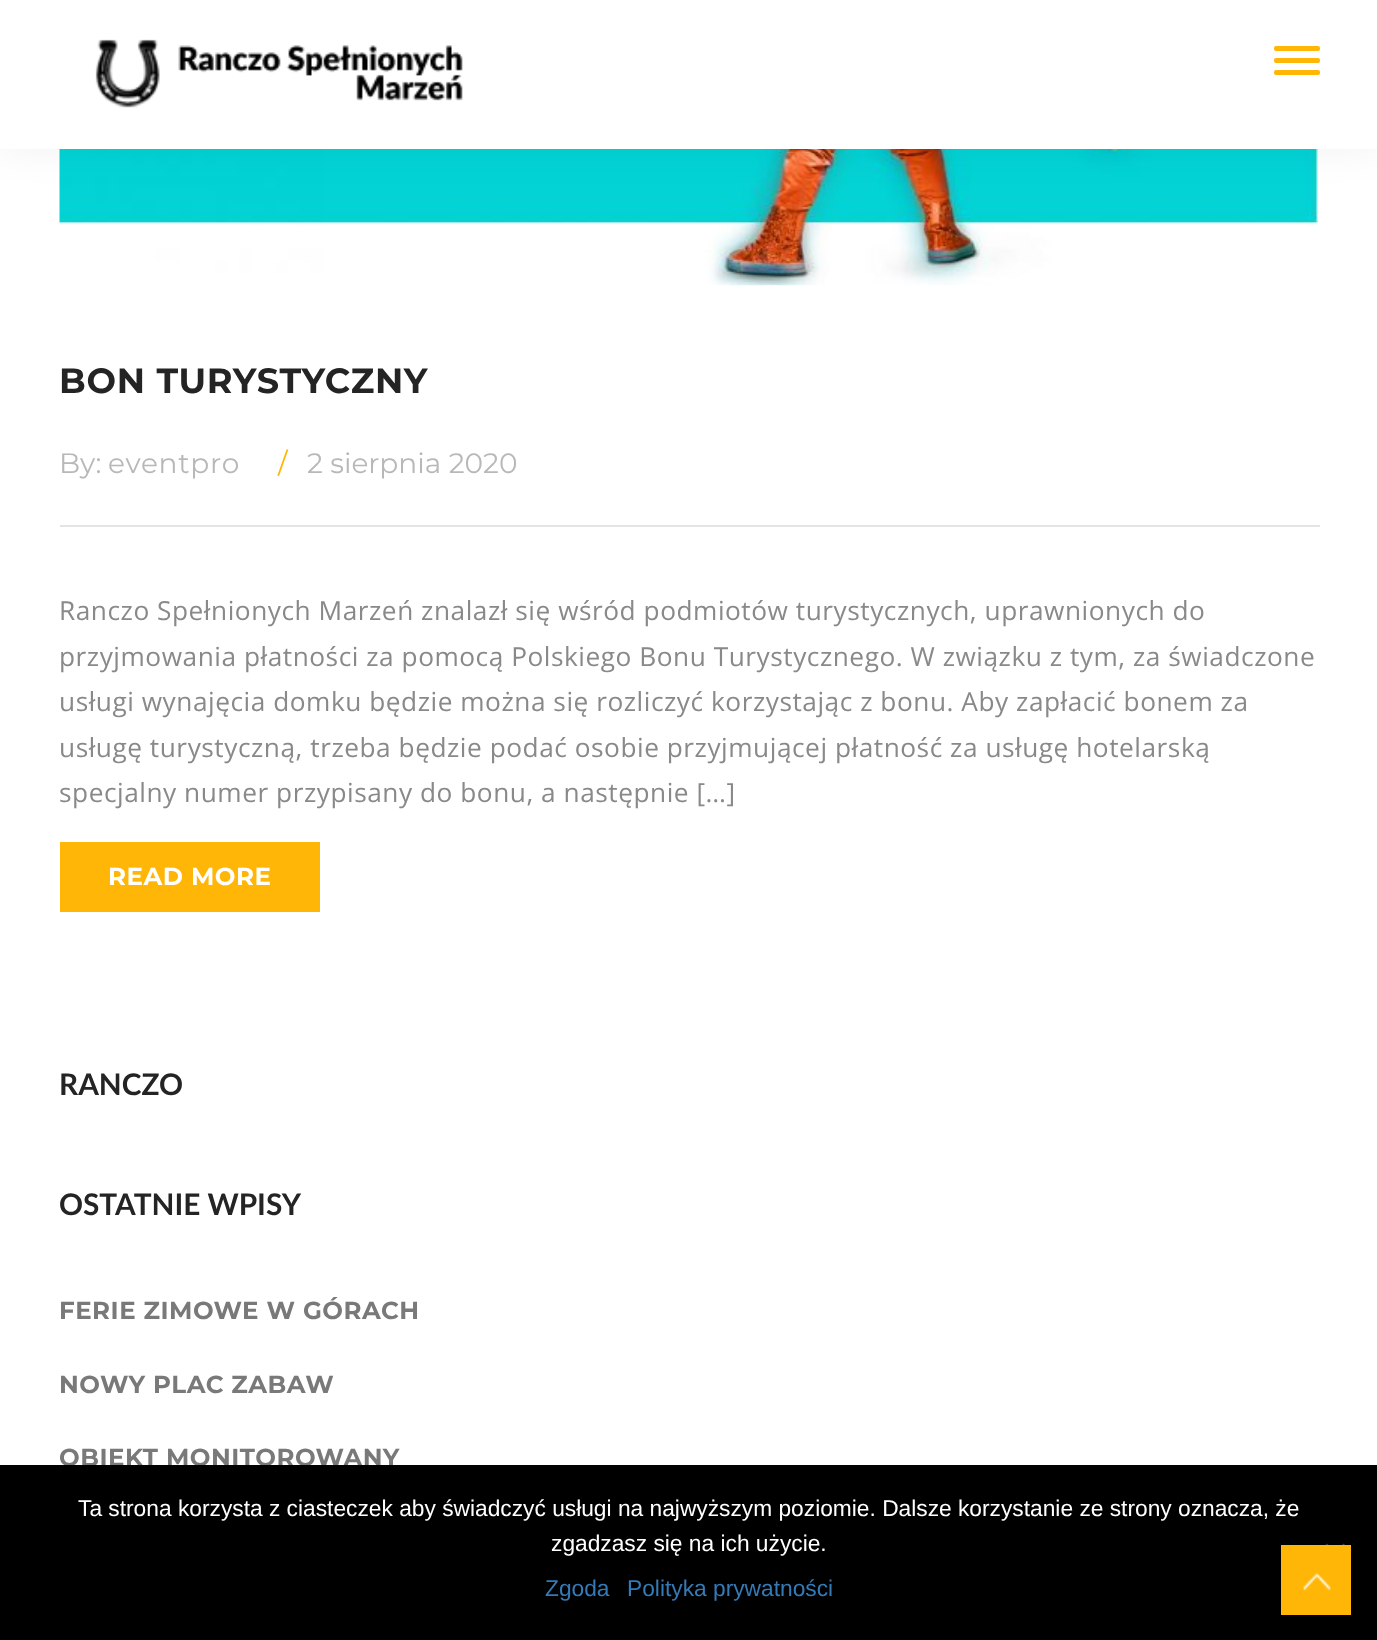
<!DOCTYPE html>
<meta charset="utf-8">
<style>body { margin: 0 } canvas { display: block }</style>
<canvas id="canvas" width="1377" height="1640"></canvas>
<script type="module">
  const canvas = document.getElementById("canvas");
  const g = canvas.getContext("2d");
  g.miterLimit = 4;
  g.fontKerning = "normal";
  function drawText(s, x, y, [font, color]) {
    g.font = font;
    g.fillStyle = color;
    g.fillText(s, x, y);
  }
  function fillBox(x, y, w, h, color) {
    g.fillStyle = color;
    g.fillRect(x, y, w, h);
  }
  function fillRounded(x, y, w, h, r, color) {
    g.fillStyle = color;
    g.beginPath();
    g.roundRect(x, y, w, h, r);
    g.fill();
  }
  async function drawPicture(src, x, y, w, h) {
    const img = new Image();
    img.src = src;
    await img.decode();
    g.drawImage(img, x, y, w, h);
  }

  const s1 = ["bold 35px Montserrat", "#242424"];
  const s2 = ["28px Montserrat", "#B8B8B8"];
  const s3 = ["28px Montserrat", "#FFB606"];
  const s4 = ["26.25px Open Sans", "#898989"];
  const s5 = ["bold 24.5px Montserrat", "#FFFFFF"];
  const s6 = ["bold 29.75px Lato", "#242424"];
  const s7 = ["bold 24.5px Montserrat", "#797979"];
  const s8 = ["22.75px Liberation Sans", "#FFFFFF"];
  const s9 = ["22.75px Liberation Sans", "#337AB7"];

  fillBox(0, 0, 1377, 1640, "#FFFFFF");
  await drawPicture("pic2.png", 59, 149, 1259, 137);
  g.fillStyle = "rgba(0, 0, 0, 0.06)";
  g.filter = "blur(21px)";
  g.beginPath();
  g.rect(-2, -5, 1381, 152);
  g.fill();
  g.filter = "none";
  fillBox(0, 0, 1377, 149, "#FFFFFF");
  await drawPicture("pic1.png", 95, 39, 368, 69);
  fillRounded(1274, 46, 46, 5, 2, "#FFB606");
  fillRounded(1274, 58, 46, 5, 2, "#FFB606");
  fillRounded(1274, 70, 46, 5, 2, "#FFB606");
  g.letterSpacing = "0.75px";
  drawText("BON TURYSTYCZNY", 59, 393, s1);
  fillBox(60, 525, 1260, 2, "#E4E4E4");
  g.letterSpacing = "0px";
  drawText("By:", 59, 473, s2);
  g.letterSpacing = "0.75px";
  drawText("eventpro", 108, 473, s2);
  g.letterSpacing = "0px";
  drawText("/", 278, 473, s3);
  drawText("2 sierpnia 2020", 307, 473, s2);
  g.letterSpacing = "0.53px";
  drawText("Ranczo Spełnionych Marzeń znalazł się wśród podmiotów turystycznych, uprawnionych do", 59, 620, s4);
  drawText("przyjmowania płatności za pomocą Polskiego Bonu Turystycznego. W związku z tym, za świadczone", 59, 666, s4);
  drawText("usługi wynajęcia domku będzie można się rozliczyć korzystając z bonu. Aby zapłacić bonem za", 59, 711, s4);
  drawText("usługę turystyczną, trzeba będzie podać osobie przyjmującej płatność za usługę hotelarską", 59, 757, s4);
  drawText("specjalny numer przypisany do bonu, a następnie […]", 59, 802, s4);
  fillBox(60, 842, 260, 70, "#FFB606");
  g.letterSpacing = "0.5px";
  drawText("READ MORE", 108, 885, s5);
  g.letterSpacing = "0px";
  drawText("RANCZO", 59, 1095, s6);
  drawText("OSTATNIE WPISY", 59, 1215, s6);
  g.letterSpacing = "0.5px";
  drawText("FERIE ZIMOWE W GÓRACH", 59, 1319, s7);
  drawText("NOWY PLAC ZABAW", 59, 1393, s7);
  drawText("OBIEKT MONITOROWANY", 59, 1466, s7);
  fillBox(0, 1465, 1377, 175, "#000000");
  g.letterSpacing = "0px";
  drawText("Ta strona korzysta z ciasteczek aby świadczyć usługi na najwyższym poziomie. Dalsze korzystanie ze strony oznacza, że", 78, 1516, s8);
  drawText("zgadzasz się na ich użycie.", 551, 1551, s8);
  g.fillStyle = "#404040";
  g.beginPath();
  g.moveTo(1343.5, 1543.5);
  g.lineTo(1346, 1546);
  g.lineTo(1327, 1564.5);
  g.lineTo(1324.5, 1562);
  g.closePath();
  g.fill();
  g.beginPath();
  g.moveTo(1324.5, 1546);
  g.lineTo(1327, 1543.5);
  g.lineTo(1346, 1562);
  g.lineTo(1343.5, 1564.5);
  g.closePath();
  g.fill();
  drawText("Zgoda", 545, 1596, s9);
  drawText("Polityka prywatności", 627, 1596, s9);
  fillBox(1281, 1545, 70, 70, "#FFB606");
  await drawPicture("pic3.png", 1303, 1572, 28, 19);
</script>
